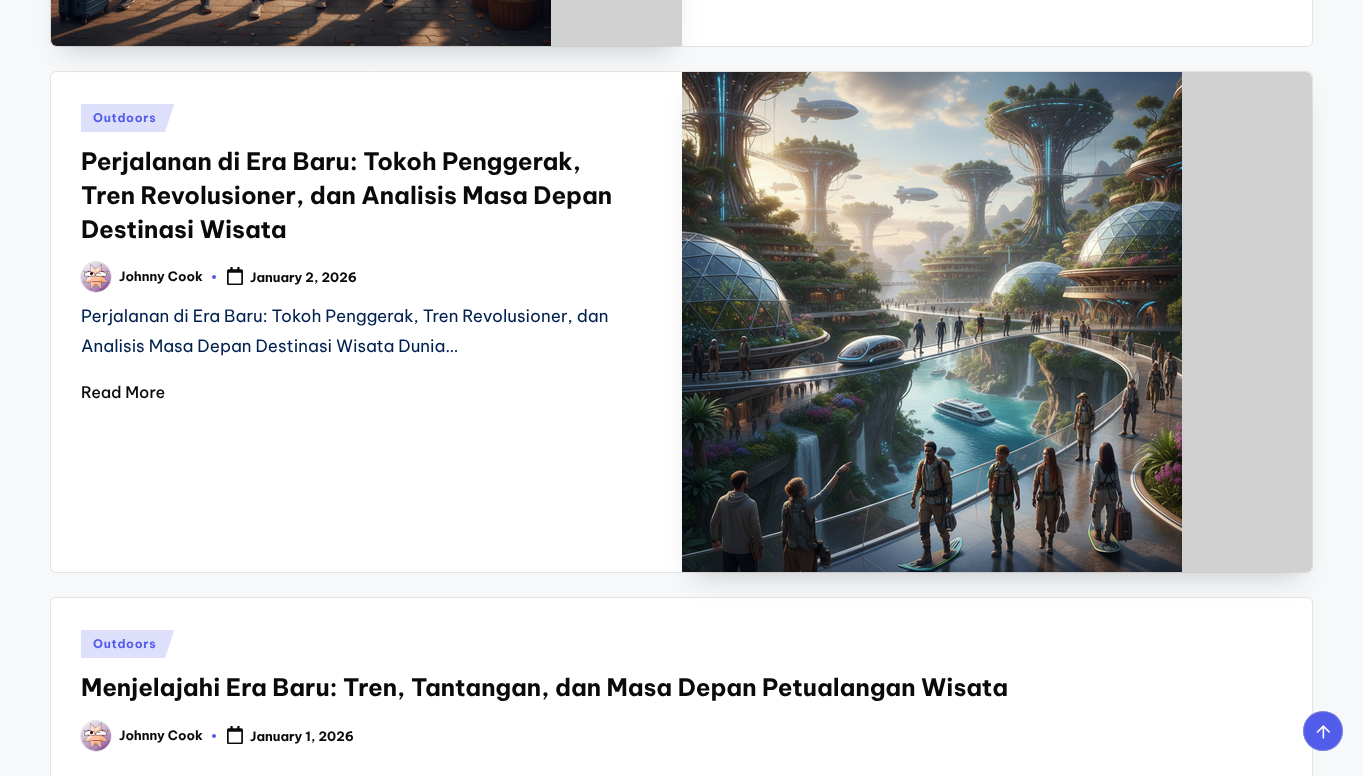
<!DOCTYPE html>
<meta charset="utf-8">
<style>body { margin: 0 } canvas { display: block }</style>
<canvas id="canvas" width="1363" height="776"></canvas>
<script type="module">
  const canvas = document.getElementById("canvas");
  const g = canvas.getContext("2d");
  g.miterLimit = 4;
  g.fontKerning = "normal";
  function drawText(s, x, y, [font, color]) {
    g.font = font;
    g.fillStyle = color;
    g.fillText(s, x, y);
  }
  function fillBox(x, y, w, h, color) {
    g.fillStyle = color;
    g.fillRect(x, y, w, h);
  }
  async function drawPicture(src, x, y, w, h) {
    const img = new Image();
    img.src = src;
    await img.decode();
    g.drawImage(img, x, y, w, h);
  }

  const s1 = ["bold 12px Be Vietnam Pro", "#525CEB"];
  const s2 = ["bold 24px Be Vietnam Pro", "#0A0A0A"];
  const s3 = ["bold 13px Be Vietnam Pro", "#0A0A0A"];
  const s4 = ["17px Be Vietnam Pro", "#002050"];
  const s5 = ["500 16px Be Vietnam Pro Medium", "#0A0A0A"];

  fillBox(0, 0, 1363, 776, "#F7F8F9");
  g.fillStyle = "#FFFFFF";
  g.beginPath();
  g.roundRect(50.5, -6.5, 1262, 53, 5.5);
  g.fill();
  g.strokeStyle = "#E3E3E3";
  g.stroke();
  g.beginPath();
  g.roundRect(50.5, 71.5, 1262, 501, 5.5);
  g.fill();
  g.stroke();
  g.fillStyle = "rgba(0, 0, 0, 0.18)";
  g.filter = "blur(14px)";
  g.beginPath();
  g.rect(63, -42, 607, 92);
  g.fill();
  g.filter = "none";
  g.fillStyle = "#D1D1D1";
  g.beginPath();
  g.moveTo(57, -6);
  g.lineTo(682, -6);
  g.lineTo(682, 46);
  g.lineTo(57, 46);
  g.bezierCurveTo(53.5, 46, 51, 43.5, 51, 40);
  g.lineTo(51, 0);
  g.bezierCurveTo(51, -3.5, 53.5, -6, 57, -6);
  g.closePath();
  g.fill();
  await drawPicture("pic1.png", 51, 0, 500, 46);
  g.fillStyle = "#DDDFFB";
  g.beginPath();
  g.moveTo(81, 104);
  g.lineTo(81, 132);
  g.lineTo(165, 132);
  g.lineTo(174, 105);
  g.lineTo(174, 104);
  g.closePath();
  g.fill();
  g.letterSpacing = "0.75px";
  drawText("Outdoors", 93, 122, s1);
  g.letterSpacing = "0px";
  drawText("Perjalanan di Era Baru: Tokoh Penggerak,", 81, 170, s2);
  drawText("Tren Revolusioner, dan Analisis Masa Depan", 81, 204, s2);
  drawText("Destinasi Wisata", 81, 238, s2);
  await drawPicture("pic2.png", 81, 262, 30, 30);
  g.beginPath();
  g.arc(96, 277, 15.5, 0, Math.PI * 2);
  g.strokeStyle = "rgba(185, 185, 185, 0.4)";
  g.stroke();
  drawText("Johnny Cook", 119, 281, s3);
  g.fillStyle = "#525CEB";
  g.beginPath();
  g.arc(214, 277, 2, 0, Math.PI * 2);
  g.fill();
  await drawPicture("pic3.png", 227, 267, 16, 18);
  drawText("January 2, 2026", 250, 282, s3);
  drawText("Perjalanan di Era Baru: Tokoh Penggerak, Tren Revolusioner, dan", 81, 322, s4);
  drawText("Analisis Masa Depan Destinasi Wisata Dunia…", 81, 352, s4);
  drawText("Read More", 81, 398, s5);
  g.fillStyle = "#FFFFFF";
  g.beginPath();
  g.roundRect(50.5, 597.5, 1262, 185, 5.5);
  g.fill();
  g.strokeStyle = "#E3E3E3";
  g.stroke();
  g.fillStyle = "rgba(0, 0, 0, 0.18)";
  g.filter = "blur(14px)";
  g.beginPath();
  g.rect(694, 100, 606, 476);
  g.fill();
  g.filter = "none";
  g.fillStyle = "#D1D1D1";
  g.beginPath();
  g.roundRect(682, 72, 630, 500, [0, 6, 6, 0]);
  g.fill();
  await drawPicture("pic4.png", 682, 72, 500, 500);
  g.fillStyle = "#DDDFFB";
  g.beginPath();
  g.moveTo(81, 630);
  g.lineTo(81, 658);
  g.lineTo(165, 658);
  g.lineTo(174, 631);
  g.lineTo(174, 630);
  g.closePath();
  g.fill();
  g.letterSpacing = "0.75px";
  drawText("Outdoors", 93, 648, s1);
  g.letterSpacing = "0px";
  drawText("Menjelajahi Era Baru: Tren, Tantangan, dan Masa Depan Petualangan Wisata", 81, 696, s2);
  await drawPicture("pic2.png", 81, 721, 30, 30);
  g.beginPath();
  g.arc(96, 736, 15.5, 0, Math.PI * 2);
  g.strokeStyle = "rgba(185, 185, 185, 0.4)";
  g.stroke();
  drawText("Johnny Cook", 119, 740, s3);
  g.fillStyle = "#525CEB";
  g.beginPath();
  g.arc(214, 736, 2, 0, Math.PI * 2);
  g.fill();
  await drawPicture("pic3.png", 227, 726, 16, 18);
  drawText("January 1, 2026", 250, 741, s3);
  g.fillStyle = "#525CEB";
  g.beginPath();
  g.arc(1323, 731, 20, 0, Math.PI * 2);
  g.fill();
  g.beginPath();
  g.arc(1323, 731, 19.5, 0, Math.PI * 2);
  g.stroke();
  await drawPicture("pic5.png", 1316, 725, 14, 14);
</script>
